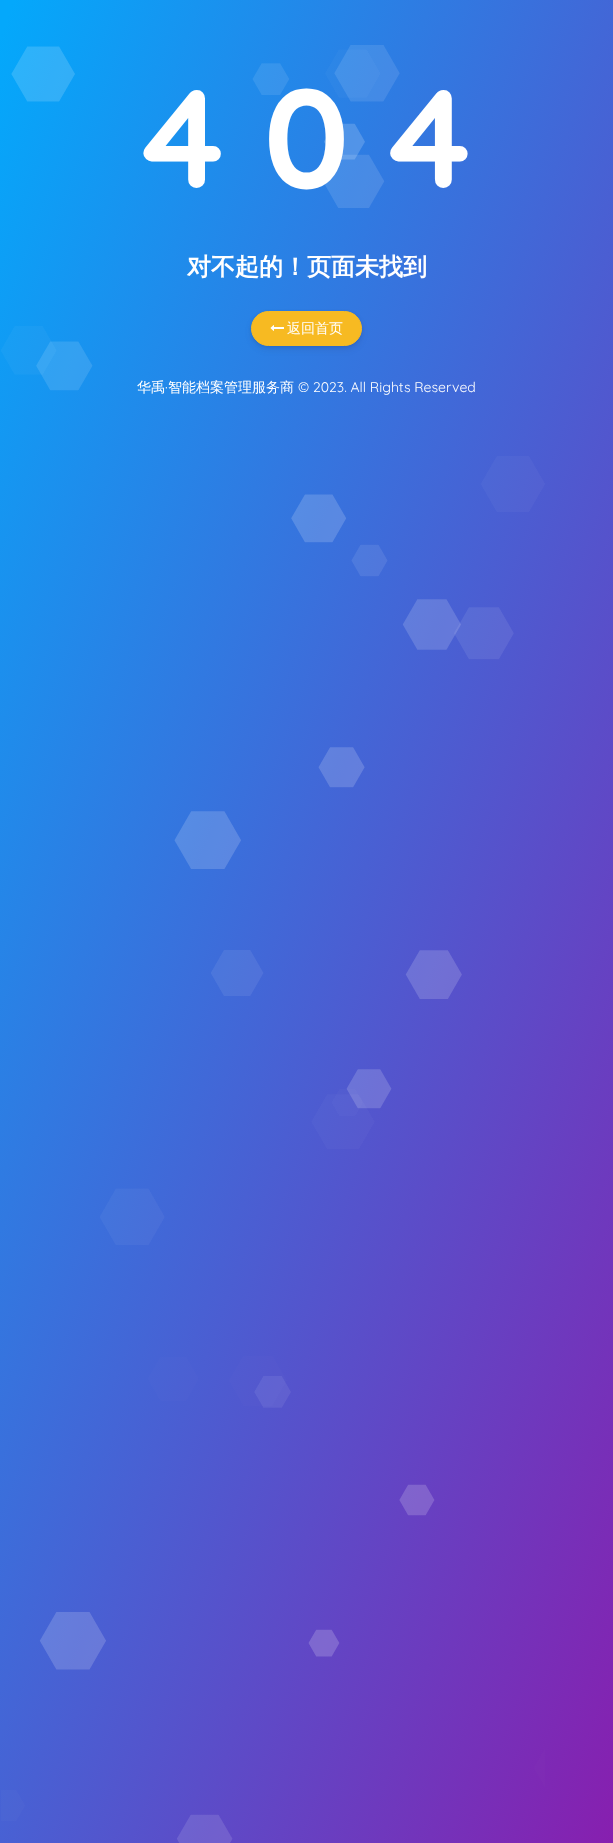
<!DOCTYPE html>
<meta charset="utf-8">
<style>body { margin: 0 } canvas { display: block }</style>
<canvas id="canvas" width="613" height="1843"></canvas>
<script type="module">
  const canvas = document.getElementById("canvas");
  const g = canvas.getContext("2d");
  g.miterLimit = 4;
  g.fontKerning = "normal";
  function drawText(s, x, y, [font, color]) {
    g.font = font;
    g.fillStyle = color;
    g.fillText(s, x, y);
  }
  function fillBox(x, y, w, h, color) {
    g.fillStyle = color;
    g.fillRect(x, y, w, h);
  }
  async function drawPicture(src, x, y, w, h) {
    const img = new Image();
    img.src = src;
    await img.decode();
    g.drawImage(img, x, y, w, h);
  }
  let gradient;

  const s1 = ["bold 140px Quicksand", "#FFFFFF"];
  const s2 = ["bold 24px WenQuanYi Zen Hei", "#FFFFFF"];
  const s3 = ["500 14px WenQuanYi Zen Hei", "#FFFFFF"];
  const s4 = ["14px Quicksand", "#FFFFFF"];

  fillBox(0, 0, 613, 1843, "#FFFFFF");
  gradient = g.createLinearGradient(-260, 715, 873, 1128);
  gradient.addColorStop(0.01, "#04A8FB");
  gradient.addColorStop(1, "#871FAF");
  g.fillStyle = gradient;
  g.fillRect(0, 0, 613, 1843);
  await drawPicture("pic1.png", 1, 45, 544, 1798);
  drawText("4 0 4", 142, 188, s1);
  drawText("对不起的！页面未找到", 187, 275, s2);
  g.fillStyle = "rgba(0, 0, 0, 0.08)";
  g.filter = "blur(1.5px)";
  g.beginPath();
  g.roundRect(251, 312, 111, 35, 17.5);
  g.fill();
  g.filter = "none";
  g.fillStyle = "rgba(50, 50, 93, 0.11)";
  g.filter = "blur(3px)";
  g.beginPath();
  g.roundRect(251, 315, 111, 35, 17.5);
  g.fill();
  g.filter = "none";
  g.fillStyle = "#F7BA22";
  g.beginPath();
  g.roundRect(251.5, 311.5, 110, 34, 17);
  g.fill();
  g.strokeStyle = "#F7BA22";
  g.stroke();
  await drawPicture("pic2.png", 270, 325, 14, 6);
  drawText("返回首页", 287, 333, s3);
  drawText("华禹", 137, 392, s3);
  drawText("·", 165, 392, s4);
  drawText("智能档案管理服务商", 168, 392, s3);
  drawText("© 2023. All Rights Reserved", 298, 392, s4);
</script>
